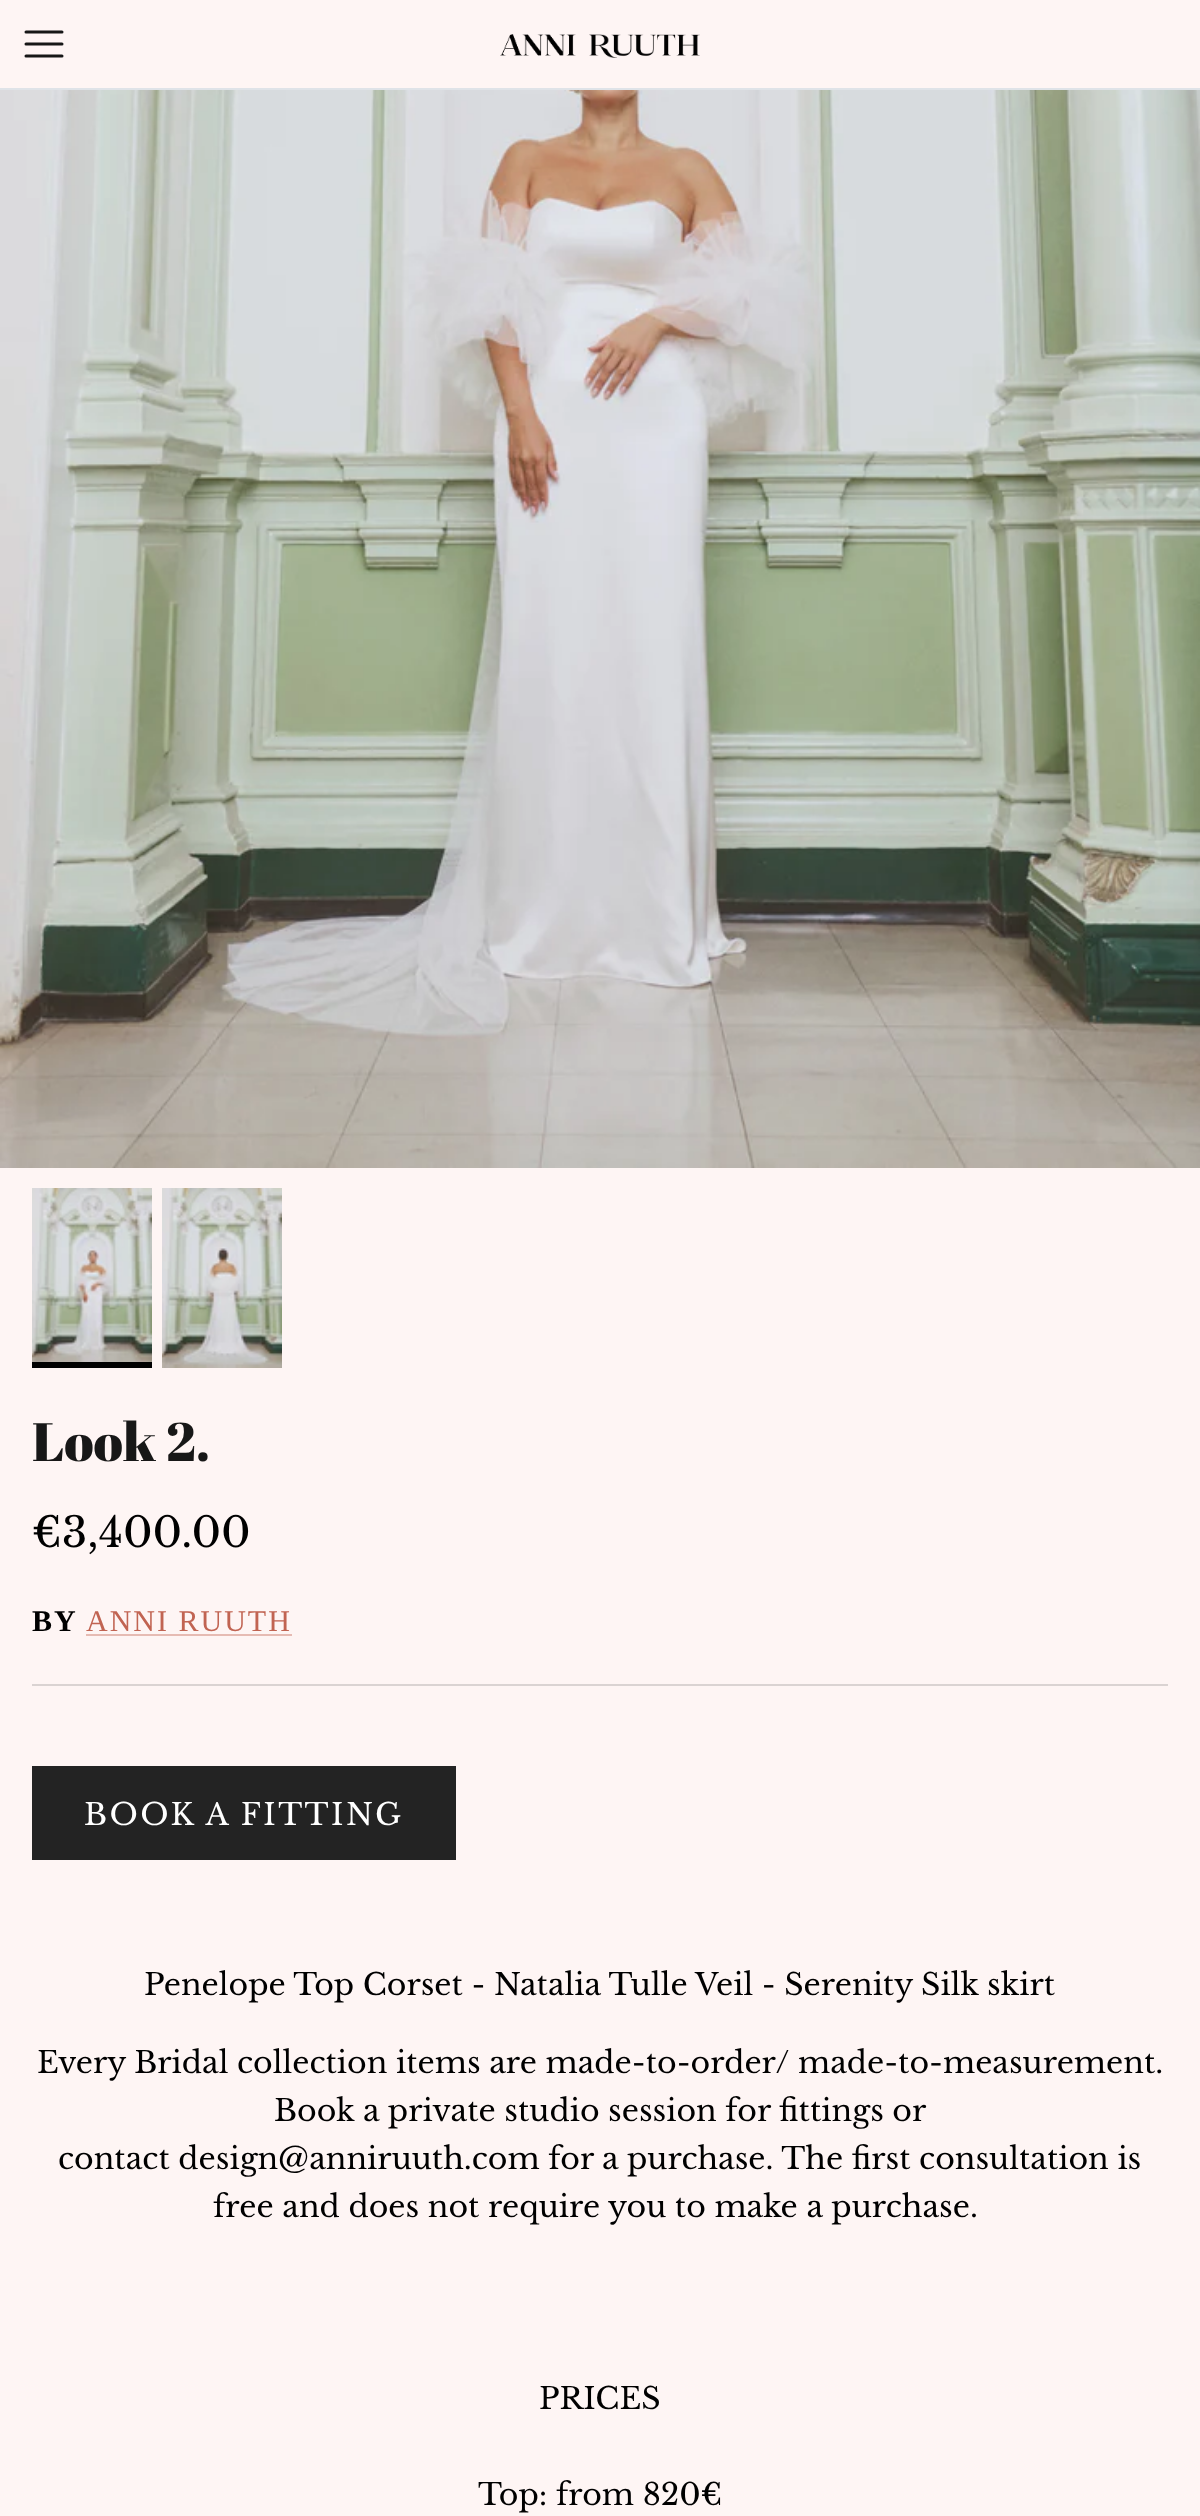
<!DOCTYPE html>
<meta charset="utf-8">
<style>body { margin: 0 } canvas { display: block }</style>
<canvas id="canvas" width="1200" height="2516"></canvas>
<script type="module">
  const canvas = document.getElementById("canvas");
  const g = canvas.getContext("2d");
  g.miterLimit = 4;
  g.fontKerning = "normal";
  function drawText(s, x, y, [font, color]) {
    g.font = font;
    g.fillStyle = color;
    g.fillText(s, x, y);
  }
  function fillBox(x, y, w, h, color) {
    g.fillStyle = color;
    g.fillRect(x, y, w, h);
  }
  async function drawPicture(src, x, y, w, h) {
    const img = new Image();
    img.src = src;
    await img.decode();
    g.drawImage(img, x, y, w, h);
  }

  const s1 = ["54px Abril Fatface", "#171717"];
  const s2 = ["41.5px Libre Baskerville", "#000000"];
  const s3 = ["bold 30px Liberation Serif", "#000000"];
  const s4 = ["30px Liberation Serif", "#C16452"];
  const s5 = ["30px Libre Baskerville", "#FFFFFF"];
  const s6 = ["30px Libre Baskerville", "#000000"];

  fillBox(0, 0, 1200, 2516, "#FEF5F4");
  fillBox(0, 88, 1200, 2, "#DFE3E8");
  g.beginPath();
  g.moveTo(26, 44);
  g.lineTo(62, 44);
  g.moveTo(26, 32);
  g.lineTo(62, 32);
  g.moveTo(26, 56);
  g.lineTo(62, 56);
  g.strokeStyle = "#171717";
  g.lineWidth = 3;
  g.lineCap = "round";
  g.lineJoin = "round";
  g.stroke();
  await drawPicture("pic1.png", 500, 34, 200, 24);
  await drawPicture("pic2.png", 0, 90, 1200, 1078);
  await drawPicture("pic3.png", 32, 1188, 120, 174);
  fillBox(32, 1362, 120, 6, "#000000");
  await drawPicture("pic4.png", 162, 1188, 120, 180);
  drawText("Look 2.", 32, 1461, s1);
  drawText("€3,400.00", 32, 1547, s2);
  g.letterSpacing = "2px";
  drawText("BY", 32, 1631, s3);
  drawText("ANNI RUUTH", 86, 1631, s4);
  fillBox(86, 1634, 206, 2, "#E6BBB3");
  fillBox(32, 1684, 1136, 2, "#DAD3D2");
  fillBox(32, 1766, 424, 94, "#232323");
  g.letterSpacing = "2.4px";
  drawText("BOOK A FITTING", 84, 1825, s5);
  g.letterSpacing = "0px";
  drawText("Penelope Top Corset - Natalia Tulle Veil - Serenity Silk skirt", 144, 1995, s6);
  drawText("Every Bridal collection items are made-to-order/ made-to-measurement.", 37, 2073, s6);
  drawText("Book a private studio session for fittings or", 274, 2121, s6);
  drawText("contact design@anniruuth.com for a purchase. The first consultation is", 58, 2169, s6);
  drawText("free and does not require you to make a purchase.", 213, 2217, s6);
  drawText("PRICES", 539, 2409, s6);
  drawText("Top: from 820€", 478, 2505, s6);
</script>
